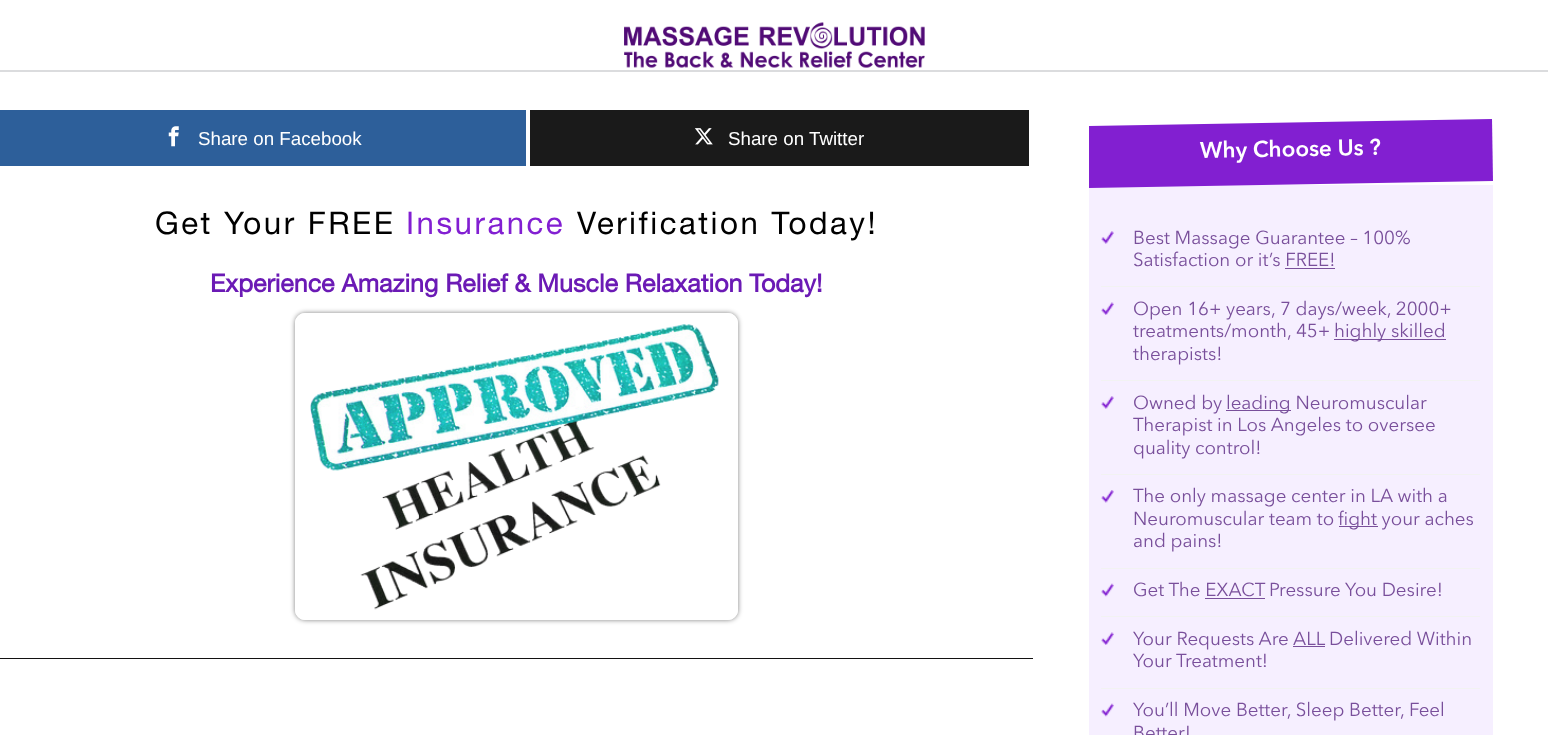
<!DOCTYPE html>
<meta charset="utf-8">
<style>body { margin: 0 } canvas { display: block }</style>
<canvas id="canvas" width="1548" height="735"></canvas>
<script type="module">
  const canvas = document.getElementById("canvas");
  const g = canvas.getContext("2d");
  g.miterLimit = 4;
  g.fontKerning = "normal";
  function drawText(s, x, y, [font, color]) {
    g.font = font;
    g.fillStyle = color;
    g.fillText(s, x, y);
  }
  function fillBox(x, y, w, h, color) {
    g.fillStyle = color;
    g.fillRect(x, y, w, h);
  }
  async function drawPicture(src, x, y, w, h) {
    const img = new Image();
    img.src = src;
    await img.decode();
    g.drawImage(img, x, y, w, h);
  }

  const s1 = ["18.75px Liberation Sans", "#FFFFFF"];
  const s2 = ["31.25px Helvetica Neue", "#000000"];
  const s3 = ["31.25px Helvetica Neue", "#821FD2"];
  const s4 = ["bold 25px Helvetica Neue", "#6B1AB5"];
  const s5 = ["18.75px Avenir Next", "#794F9B"];

  fillBox(0, 0, 1548, 735, "#FFFFFF");
  fillBox(0, 70, 1548, 2, "#DBDCDE");
  await drawPicture("pic1.png", 624, 22, 301, 46);
  fillBox(0, 110, 526, 56, "#2D5F9A");
  await drawPicture("pic2.png", 168, 126, 11, 21);
  drawText("Share on Facebook", 198, 145, s1);
  fillBox(530, 110, 499, 56, "#1A1A1A");
  await drawPicture("pic3.png", 694, 128, 19, 17);
  drawText("Share on Twitter", 728, 145, s1);
  g.letterSpacing = "2.5px";
  drawText("Get Your FREE", 155, 234, s2);
  drawText("Insurance", 406, 234, s3);
  drawText("Verification Today!", 577, 234, s2);
  g.letterSpacing = "0px";
  drawText("Experience Amazing Relief & Muscle Relaxation Today!", 210, 292, s4);
  g.save();
  g.beginPath();
  g.moveTo(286, 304);
  g.lineTo(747, 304);
  g.lineTo(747, 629);
  g.lineTo(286, 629);
  g.closePath();
  g.moveTo(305, 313);
  g.lineTo(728, 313);
  g.bezierCurveTo(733.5, 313, 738, 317.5, 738, 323);
  g.lineTo(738, 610);
  g.bezierCurveTo(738, 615.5, 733.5, 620, 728, 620);
  g.lineTo(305, 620);
  g.bezierCurveTo(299.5, 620, 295, 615.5, 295, 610);
  g.lineTo(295, 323);
  g.bezierCurveTo(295, 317.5, 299.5, 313, 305, 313);
  g.closePath();
  g.clip("evenodd");
  g.fillStyle = "rgba(0, 0, 0, 0.5)";
  g.filter = "blur(2.5px)";
  g.beginPath();
  g.roundRect(295, 313, 443, 307, 10);
  g.fill();
  g.filter = "none";
  g.restore();
  g.beginPath();
  g.roundRect(295.5, 313.5, 442, 306, 9.5);
  g.strokeStyle = "#FFFFFF";
  g.stroke();
  await drawPicture("pic4.png", 310, 324, 409, 286);
  fillBox(0, 658, 1033, 1, "#131212");
  fillBox(1089, 185, 404, 550, "#F6EFFF");
  g.save();
  g.beginPath();
  g.rect(1089, 110, 404, 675);
  g.clip();
  g.fillStyle = "#821FD1";
  g.beginPath();
  g.moveTo(1088, 126);
  g.lineTo(1492, 119);
  g.lineTo(1493, 181);
  g.lineTo(1089, 188);
  g.closePath();
  g.fill();
  g.restore();
  g.font = "600 22.5px Avenir Next";
  g.fillStyle = "#FFFFFF";
  g.save();
  g.translate(1200, 158);
  g.rotate(-1 * Math.PI / 180);
  g.fillText("Why Choose Us ?", 0, 0);
  g.restore();
  fillBox(1101, 286, 379, 1, "#F2F2F2");
  await drawPicture("pic5.png", 1101, 231, 13, 13);
  drawText("Best Massage Guarantee – 100%", 1133, 244, s5);
  drawText("Satisfaction or it’s FREE!", 1133, 266, s5);
  fillBox(1285, 268, 50, 1, "#794F9B");
  fillBox(1101, 380, 379, 1, "#F2F2F2");
  await drawPicture("pic6.png", 1101, 302, 13, 13);
  drawText("Open 16+ years, 7 days/week, 2000+", 1133, 315, s5);
  drawText("treatments/month, 45+", 1133, 337, s5);
  fillBox(1334, 339, 112, 1, "#794F9B");
  drawText("highly skilled", 1334, 337, s5);
  drawText("therapists!", 1133, 360, s5);
  fillBox(1101, 474, 379, 1, "#F2F2F2");
  await drawPicture("pic5.png", 1101, 396, 13, 13);
  drawText("Owned by", 1133, 409, s5);
  fillBox(1226, 410, 65, 1, "#794F9B");
  drawText("leading Neuromuscular", 1226, 409, s5);
  drawText("Therapist in Los Angeles to oversee", 1133, 431, s5);
  drawText("quality control!", 1133, 454, s5);
  fillBox(1101, 568, 379, 1, "#F2F2F2");
  await drawPicture("pic7.png", 1101, 490, 13, 13);
  drawText("The only massage center in LA with a", 1133, 502, s5);
  drawText("Neuromuscular team to", 1133, 525, s5);
  fillBox(1339, 526, 39, 1, "#794F9B");
  drawText("fight your aches", 1338, 525, s5);
  drawText("and pains!", 1133, 547, s5);
  fillBox(1101, 616, 379, 1, "#F2F2F2");
  await drawPicture("pic8.png", 1101, 583, 13, 14);
  drawText("Get The EXACT", 1133, 596, s5);
  drawText("Pressure You Desire!", 1269, 596, s5);
  fillBox(1205, 598, 60, 1, "#794F9B");
  fillBox(1101, 688, 379, 1, "#F2F2F2");
  await drawPicture("pic6.png", 1101, 632, 13, 13);
  drawText("Your Requests Are", 1133, 645, s5);
  drawText("ALL", 1293, 645, s5);
  fillBox(1293, 646, 32, 1, "#794F9B");
  drawText("Delivered Within", 1329, 645, s5);
  drawText("Your Treatment!", 1133, 667, s5);
  await drawPicture("pic9.png", 1101, 703, 13, 14);
  drawText("You’ll Move Better, Sleep Better, Feel", 1133, 716, s5);
  drawText("Better!", 1133, 739, s5);
</script>
